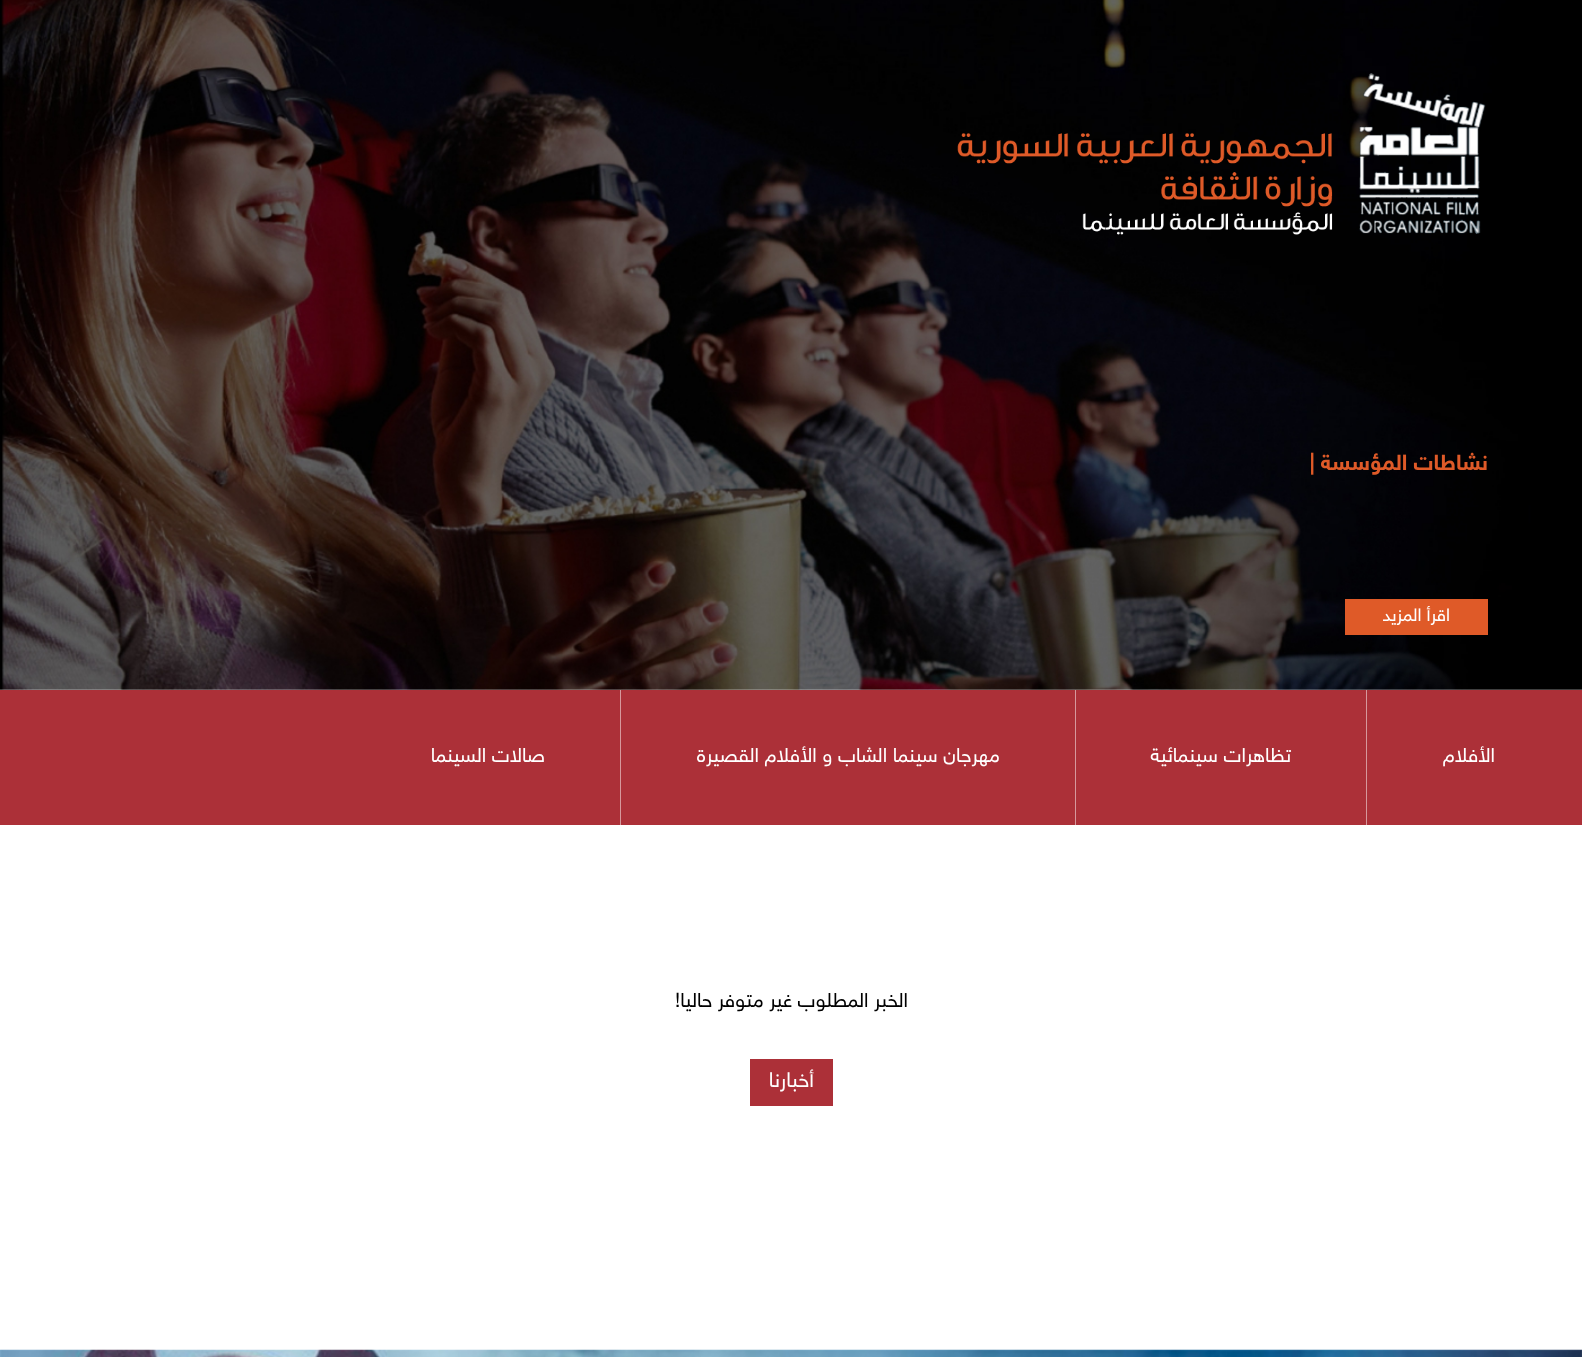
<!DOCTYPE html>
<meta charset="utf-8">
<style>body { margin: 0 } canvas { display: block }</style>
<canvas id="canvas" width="1582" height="1357"></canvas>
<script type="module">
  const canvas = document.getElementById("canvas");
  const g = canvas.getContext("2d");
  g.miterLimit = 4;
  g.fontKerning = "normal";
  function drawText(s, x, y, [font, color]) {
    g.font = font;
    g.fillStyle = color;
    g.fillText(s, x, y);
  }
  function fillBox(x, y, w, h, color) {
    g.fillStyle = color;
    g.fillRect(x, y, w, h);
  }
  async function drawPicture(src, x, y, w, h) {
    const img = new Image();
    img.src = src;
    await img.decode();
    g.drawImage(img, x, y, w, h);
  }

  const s1 = ["bold 22px 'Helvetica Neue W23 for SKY'", "#DF5A28"];
  const s2 = ["18px 'Helvetica Neue W23 for SKY'", "#FFFFFF"];
  const s3 = ["20px 'Helvetica Neue W23 for SKY'", "#FFFFFF"];
  const s4 = ["20px 'Helvetica Neue W23 for SKY'", "#000000"];
  const s5 = ["21px 'Helvetica Neue W23 for SKY'", "#FFFFFF"];

  fillBox(0, 0, 1582, 1357, "#FFFFFF");
  await drawPicture("pic1.png", 0, 0, 1582, 690);
  await drawPicture("pic2.png", 957, 73, 529, 162);
  g.direction = "rtl";
  drawText("نشاطات المؤسسة |", 1488, 470, s1);
  fillBox(1345, 599, 143, 36, "#DF5A28");
  drawText("اقرأ المزيد", 1450, 621, s2);
  fillBox(0, 690, 1582, 135, "#AC3038");
  drawText("الأفلام", 1495, 762, s3);
  fillBox(1366, 690, 1, 135, "#D6989C");
  drawText("تظاهرات سينمائية", 1291, 762, s3);
  fillBox(1075, 690, 1, 135, "#D6989C");
  drawText("مهرجان سينما الشاب و الأفلام القصيرة", 1000, 762, s3);
  fillBox(620, 690, 1, 135, "#D6989C");
  drawText("صالات السينما", 545, 762, s3);
  drawText("الخبر المطلوب غير متوفر حاليا!", 908, 1007, s4);
  fillBox(750, 1059, 83, 47, "#AC3038");
  drawText("أخبارنا", 814, 1087, s5);
  await drawPicture("pic3.png", 0, 1349, 1582, 8);
</script>
